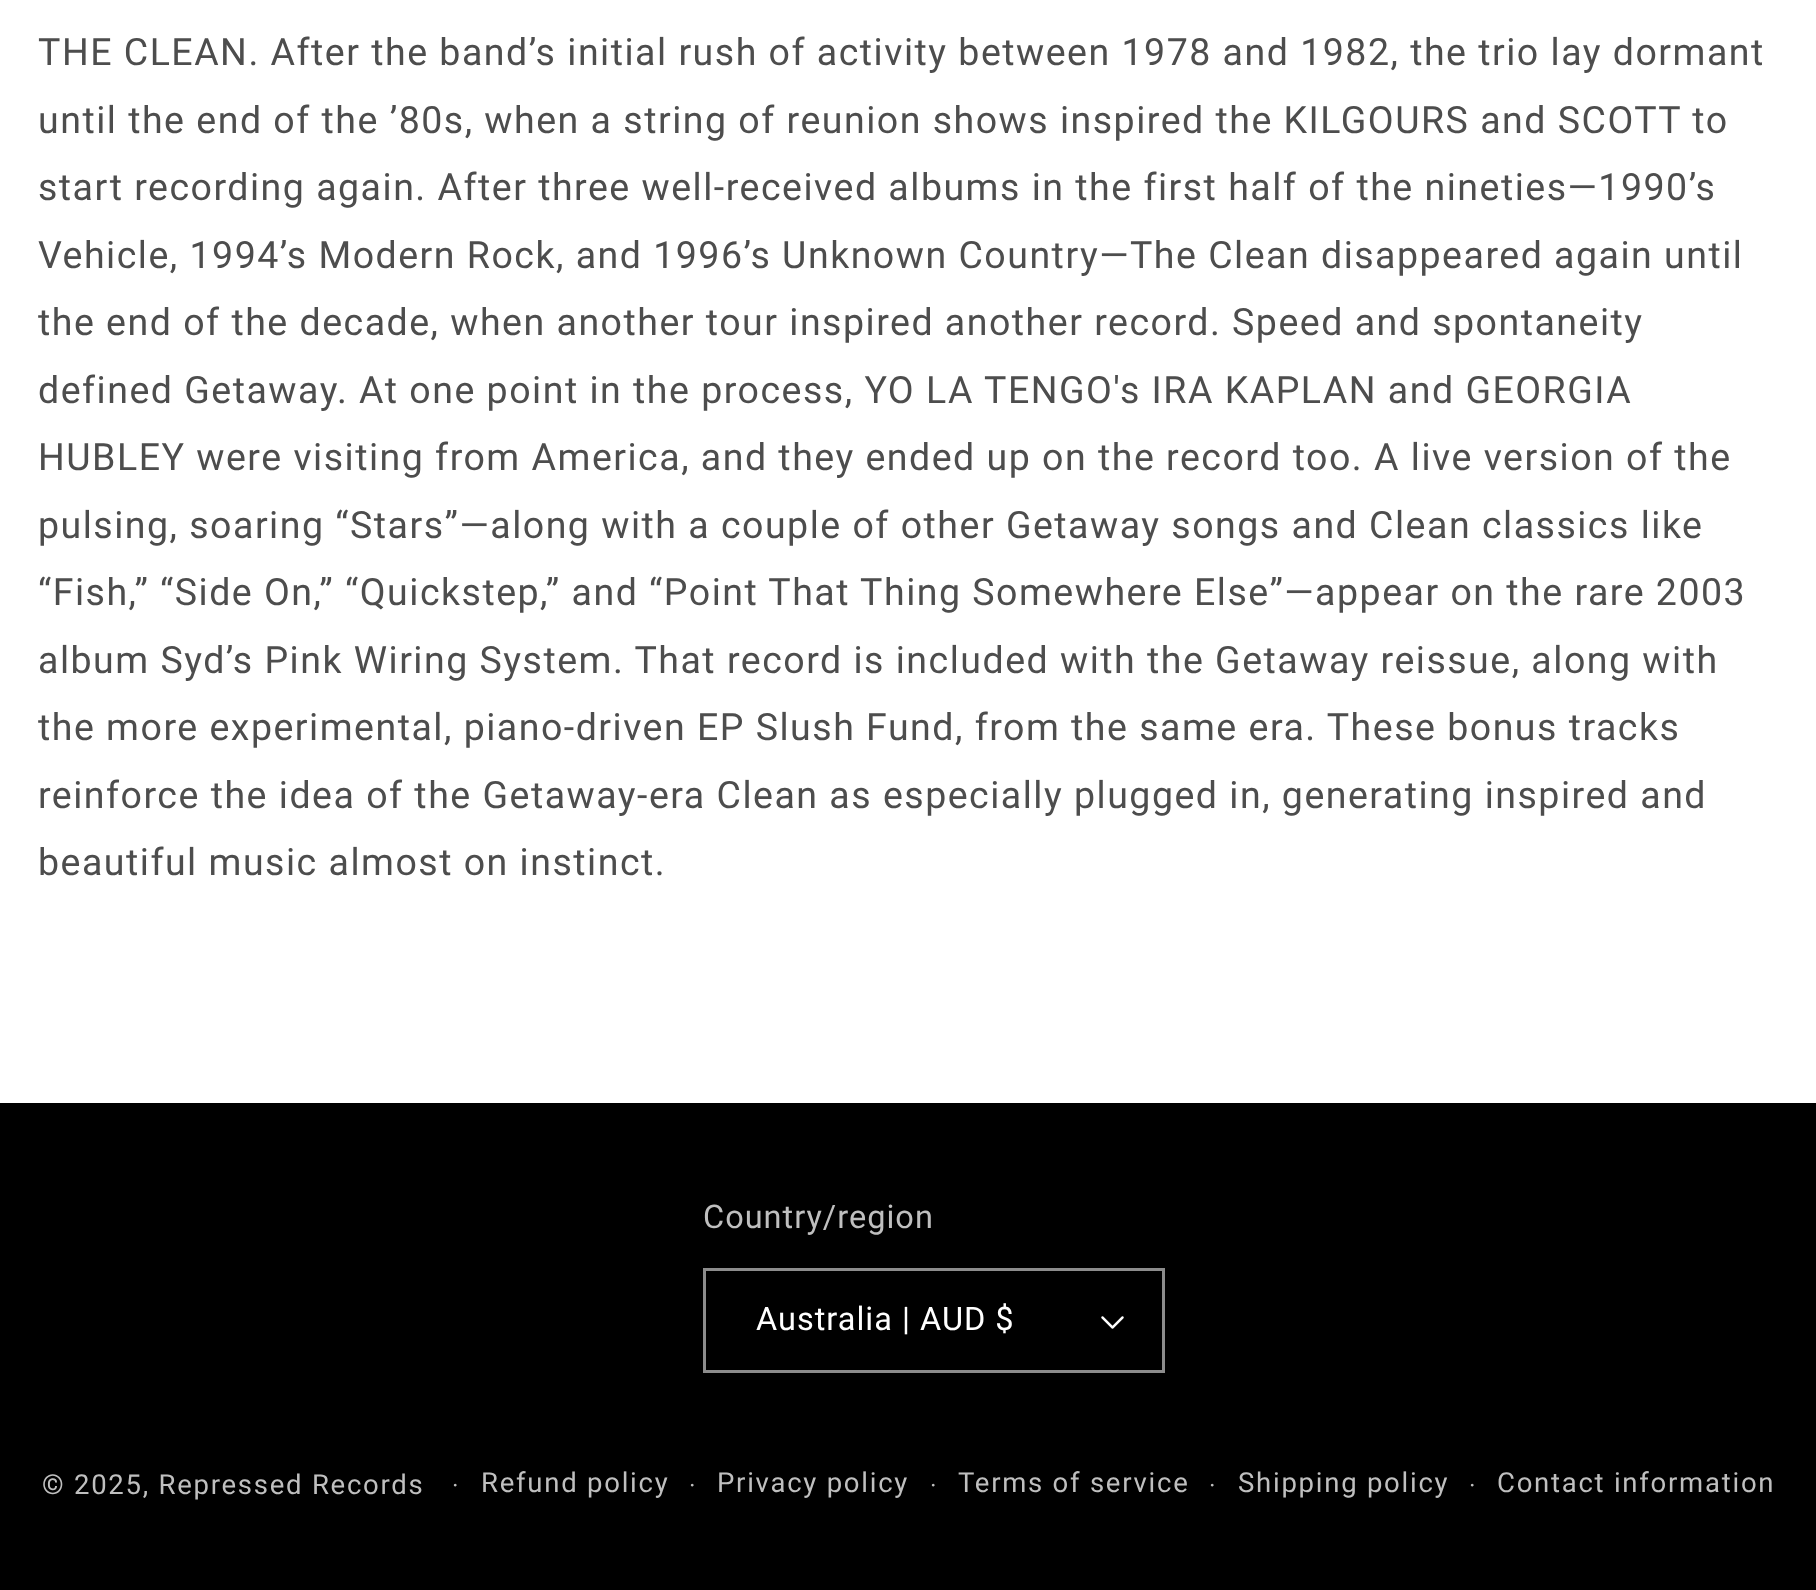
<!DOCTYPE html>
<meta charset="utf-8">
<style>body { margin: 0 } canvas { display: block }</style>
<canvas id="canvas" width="1816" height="1590"></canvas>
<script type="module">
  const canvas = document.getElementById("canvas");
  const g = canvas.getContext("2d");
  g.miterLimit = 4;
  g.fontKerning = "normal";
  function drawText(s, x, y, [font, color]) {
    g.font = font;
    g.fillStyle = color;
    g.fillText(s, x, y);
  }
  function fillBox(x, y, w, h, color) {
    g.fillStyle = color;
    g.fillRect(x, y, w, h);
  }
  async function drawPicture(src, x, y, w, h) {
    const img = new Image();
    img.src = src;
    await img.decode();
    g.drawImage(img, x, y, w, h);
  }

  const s1 = ["37.5px Roboto", "#4D4D4D"];
  const s2 = ["32.5px Roboto", "#BFBFBF"];
  const s3 = ["32.5px Roboto", "#FFFFFF"];
  const s4 = ["27.5px Roboto", "#BFBFBF"];
  const s5 = ["25px Roboto", "#BFBFBF"];

  fillBox(0, 0, 1816, 1590, "#FFFFFF");
  g.letterSpacing = "1.5px";
  drawText("THE CLEAN. After the band’s initial rush of activity between 1978 and 1982, the trio lay dormant", 38, 65, s1);
  drawText("until the end of the ’80s, when a string of reunion shows inspired the KILGOURS and SCOTT to", 38, 133, s1);
  drawText("start recording again. After three well-received albums in the first half of the nineties—1990’s", 38, 200, s1);
  drawText("Vehicle, 1994’s Modern Rock, and 1996’s Unknown Country—The Clean disappeared again until", 38, 268, s1);
  drawText("the end of the decade, when another tour inspired another record. Speed and spontaneity", 38, 335, s1);
  drawText("defined Getaway. At one point in the process, YO LA TENGO's IRA KAPLAN and GEORGIA", 38, 403, s1);
  drawText("HUBLEY were visiting from America, and they ended up on the record too. A live version of the", 38, 470, s1);
  drawText("pulsing, soaring “Stars”—along with a couple of other Getaway songs and Clean classics like", 38, 538, s1);
  drawText("“Fish,” “Side On,” “Quickstep,” and “Point That Thing Somewhere Else”—appear on the rare 2003", 38, 605, s1);
  drawText("album Syd’s Pink Wiring System. That record is included with the Getaway reissue, along with", 38, 673, s1);
  drawText("the more experimental, piano-driven EP Slush Fund, from the same era. These bonus tracks", 38, 740, s1);
  drawText("reinforce the idea of the Getaway-era Clean as especially plugged in, generating inspired and", 38, 808, s1);
  drawText("beautiful music almost on instinct.", 38, 875, s1);
  fillBox(0, 1103, 1816, 487, "#000000");
  g.letterSpacing = "1px";
  drawText("Country/region", 703, 1228, s2);
  await drawPicture("pic1.png", 1101, 1316, 23, 13);
  g.strokeStyle = "#8C8C8C";
  g.lineWidth = 3;
  g.strokeRect(704.5, 1269.5, 459, 102);
  drawText("Australia | AUD $", 756, 1330, s3);
  g.letterSpacing = "1.75px";
  drawText("© 2025, Repressed Records", 42, 1494, s4);
  drawText("·", 452, 1494, s5);
  drawText("Refund policy", 481, 1492, s4);
  drawText("·", 689, 1494, s5);
  drawText("Privacy policy", 717, 1492, s4);
  drawText("·", 930, 1494, s5);
  drawText("Terms of service", 958, 1492, s4);
  drawText("·", 1209, 1494, s5);
  drawText("Shipping policy", 1238, 1492, s4);
  drawText("·", 1469, 1494, s5);
  drawText("Contact information", 1497, 1492, s4);
</script>
